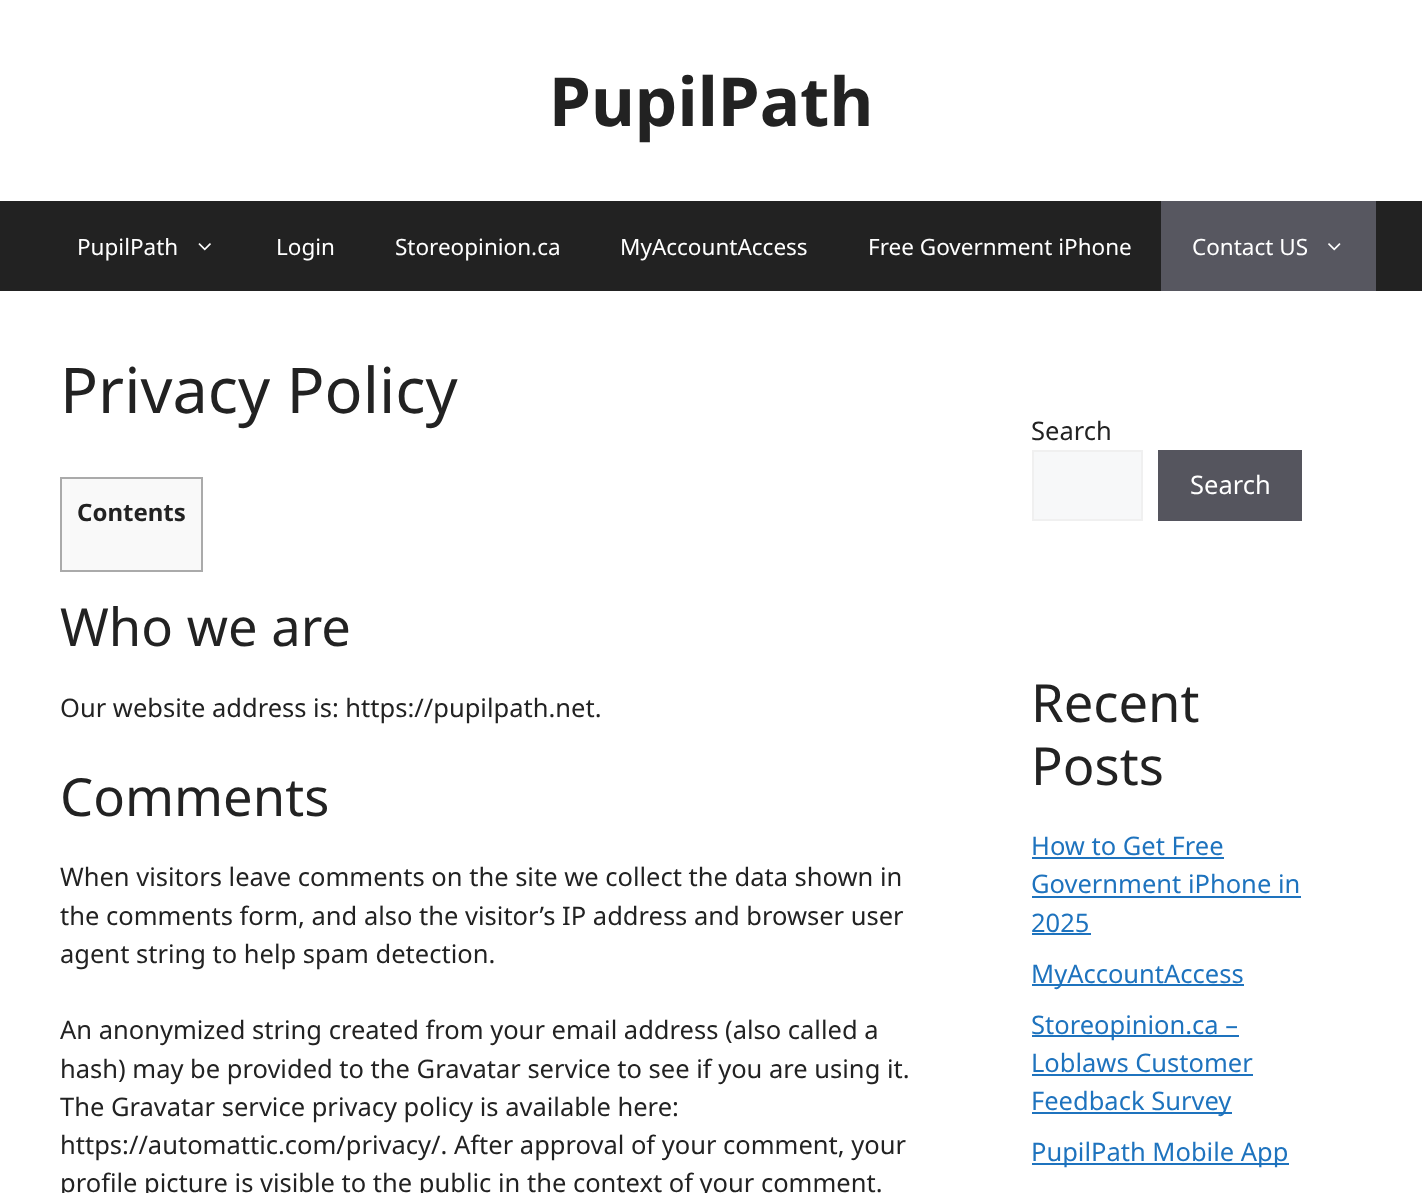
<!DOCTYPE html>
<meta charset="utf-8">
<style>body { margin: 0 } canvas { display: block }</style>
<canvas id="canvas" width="1422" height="1193"></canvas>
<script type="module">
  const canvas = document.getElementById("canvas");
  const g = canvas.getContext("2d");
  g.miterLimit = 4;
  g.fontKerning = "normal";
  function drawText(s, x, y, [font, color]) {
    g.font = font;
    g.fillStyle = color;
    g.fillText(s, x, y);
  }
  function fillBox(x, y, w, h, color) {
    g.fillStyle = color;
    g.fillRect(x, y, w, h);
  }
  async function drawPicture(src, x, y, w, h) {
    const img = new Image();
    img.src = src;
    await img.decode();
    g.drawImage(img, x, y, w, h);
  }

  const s1 = ["bold 67.5px Noto Sans", "#222222"];
  const s2 = ["22.5px Noto Sans", "#FFFFFF"];
  const s3 = ["63px Noto Sans", "#222222"];
  const s4 = ["bold 24px Noto Sans", "#222222"];
  const s5 = ["52.5px Noto Sans", "#222222"];
  const s6 = ["25.5px Noto Sans", "#222222"];
  const s7 = ["25.5px Noto Sans", "#FFFFFF"];
  const s8 = ["25.5px Noto Sans", "#1E73BE"];

  fillBox(0, 0, 1422, 1193, "#222222");
  fillBox(0, 0, 1422, 201, "#FFFFFF");
  drawText("PupilPath", 549, 126, s1);
  drawText("PupilPath", 77, 255, s2);
  await drawPicture("pic1.png", 198, 243, 13, 8);
  drawText("Login", 276, 255, s2);
  drawText("Storeopinion.ca", 395, 255, s2);
  drawText("MyAccountAccess", 620, 255, s2);
  drawText("Free Government iPhone", 868, 255, s2);
  fillBox(1161, 201, 215, 90, "#575760");
  drawText("Contact US", 1192, 255, s2);
  await drawPicture("pic2.png", 1328, 243, 13, 8);
  fillBox(0, 291, 1422, 902, "#FFFFFF");
  drawText("Privacy Policy", 60, 413, s3);
  g.fillStyle = "#F9F9F9";
  g.beginPath();
  g.rect(61, 478, 141, 93);
  g.fill();
  g.strokeStyle = "#AAAAAA";
  g.lineWidth = 2;
  g.stroke();
  drawText("Contents", 77, 521, s4);
  drawText("Who we are", 60, 646, s5);
  drawText("Our website address is: https://pupilpath.net.", 60, 717, s6);
  drawText("Comments", 60, 816, s5);
  drawText("When visitors leave comments on the site we collect the data shown in", 60, 886, s6);
  drawText("the comments form, and also the visitor’s IP address and browser user", 60, 925, s6);
  drawText("agent string to help spam detection.", 60, 963, s6);
  drawText("An anonymized string created from your email address (also called a", 60, 1039, s6);
  drawText("hash) may be provided to the Gravatar service to see if you are using it.", 60, 1078, s6);
  drawText("The Gravatar service privacy policy is available here:", 60, 1116, s6);
  drawText("https://automattic.com/privacy/. After approval of your comment, your", 60, 1154, s6);
  drawText("profile picture is visible to the public in the context of your comment.", 60, 1192, s6);
  drawText("Search", 1031, 440, s6);
  g.fillStyle = "#F7F8F9";
  g.beginPath();
  g.rect(1033, 451, 109, 69);
  g.fill();
  g.strokeStyle = "#F0F0F0";
  g.stroke();
  fillBox(1158, 450, 144, 71, "#55555E");
  drawText("Search", 1190, 494, s7);
  drawText("Recent", 1031, 722, s5);
  drawText("Posts", 1031, 785, s5);
  drawText("How to Get Free", 1031, 855, s8);
  fillBox(1032, 857, 192, 2, "#1E73BE");
  drawText("Government iPhone in", 1031, 893, s8);
  fillBox(1032, 896, 269, 2, "#1E73BE");
  drawText("2025", 1031, 932, s8);
  fillBox(1032, 933, 59, 2, "#1E73BE");
  fillBox(1032, 984, 212, 2, "#1E73BE");
  drawText("MyAccountAccess", 1031, 983, s8);
  fillBox(1032, 1035, 207, 2, "#1E73BE");
  drawText("Storeopinion.ca –", 1031, 1034, s8);
  drawText("Loblaws Customer", 1031, 1072, s8);
  fillBox(1032, 1074, 221, 2, "#1E73BE");
  fillBox(1032, 1112, 200, 2, "#1E73BE");
  drawText("Feedback Survey", 1031, 1110, s8);
  fillBox(1032, 1163, 257, 2, "#1E73BE");
  drawText("PupilPath Mobile App", 1031, 1161, s8);
</script>
